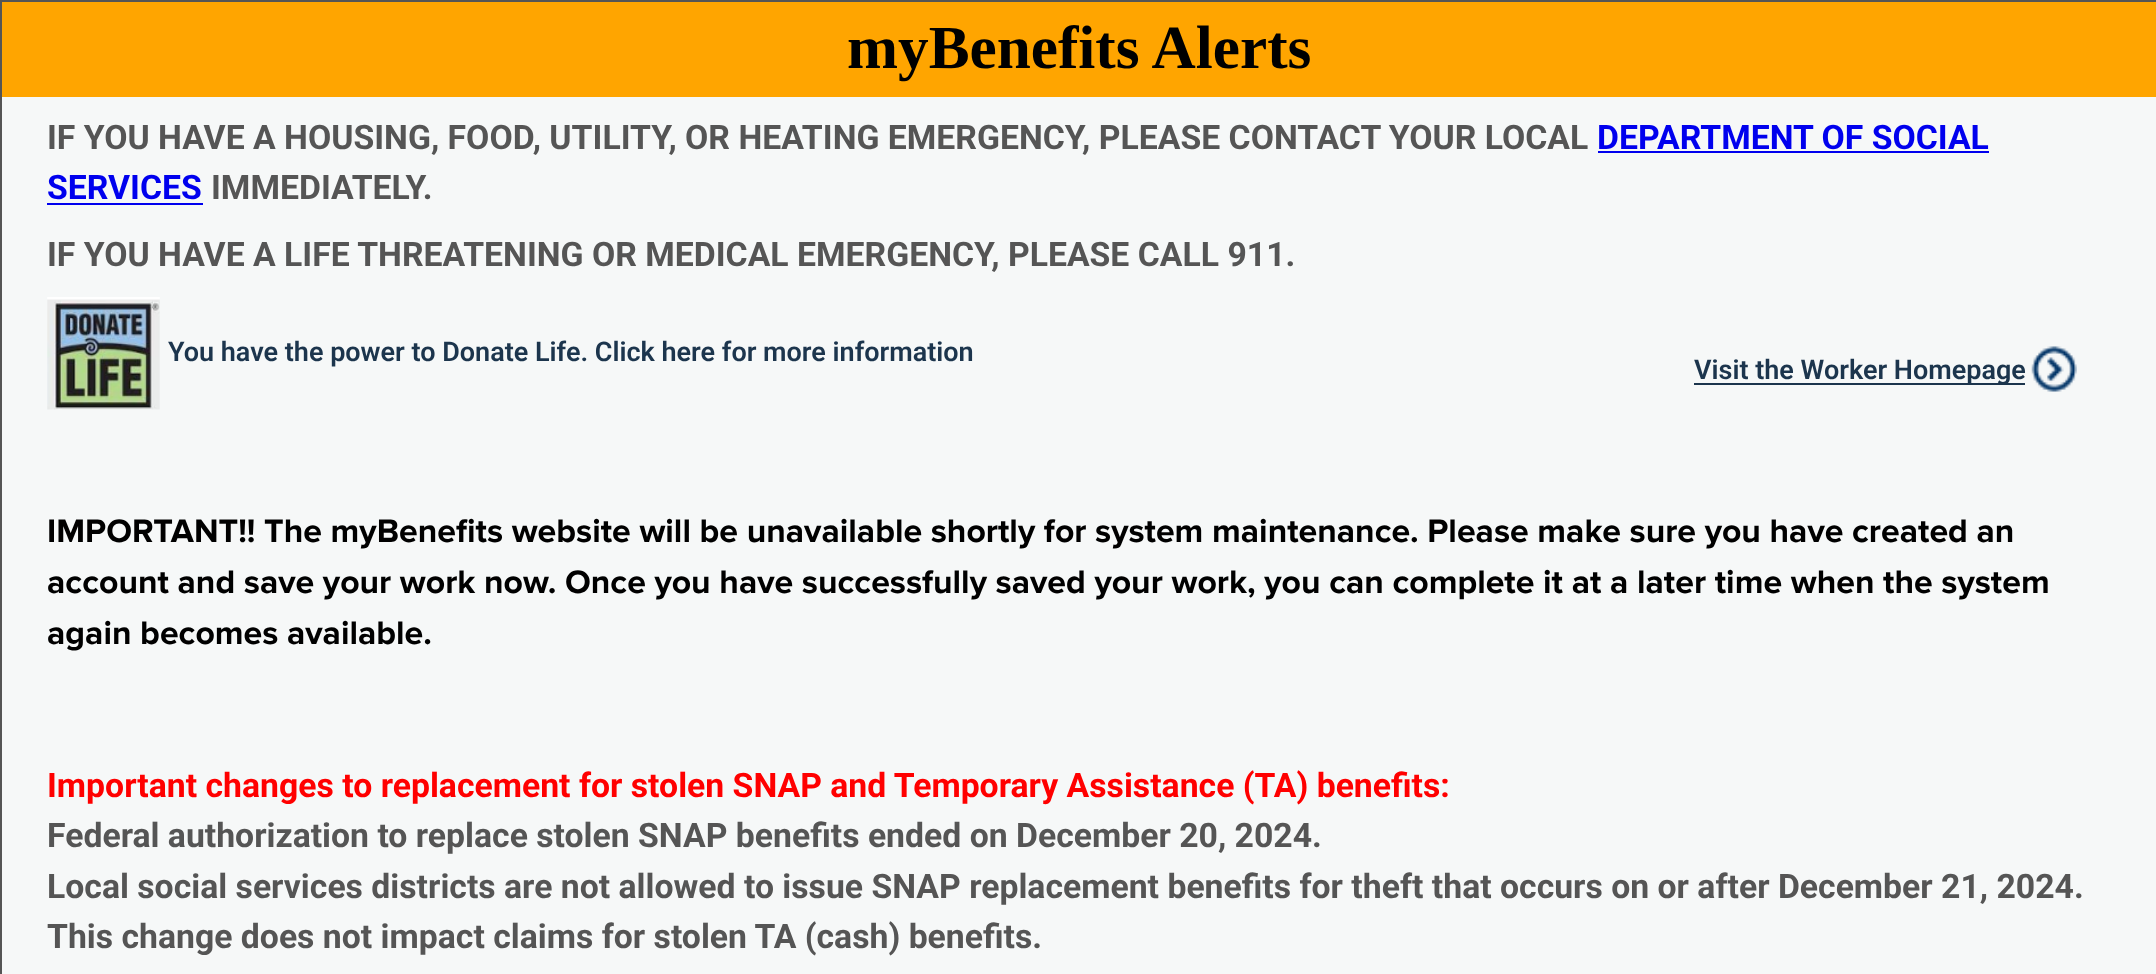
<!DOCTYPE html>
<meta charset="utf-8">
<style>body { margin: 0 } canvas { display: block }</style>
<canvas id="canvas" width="2156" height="974"></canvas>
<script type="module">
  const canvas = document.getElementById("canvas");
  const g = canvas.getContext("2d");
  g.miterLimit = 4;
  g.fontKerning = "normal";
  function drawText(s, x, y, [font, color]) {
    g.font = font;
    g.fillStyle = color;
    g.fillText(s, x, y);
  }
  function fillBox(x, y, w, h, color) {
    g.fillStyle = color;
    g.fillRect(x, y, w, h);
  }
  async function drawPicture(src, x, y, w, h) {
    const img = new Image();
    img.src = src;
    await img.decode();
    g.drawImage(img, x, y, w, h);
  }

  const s1 = ["bold 61.25px Liberation Serif", "#000000"];
  const s2 = ["bold 33.75px Roboto", "#555555"];
  const s3 = ["bold 33.75px Roboto", "#0000EE"];
  const s4 = ["600 27px Roboto", "#1C354D"];
  const s5 = ["bold 33.75px Proxima Nova", "#000000"];
  const s6 = ["bold 33.75px Roboto", "#FF0000"];

  fillBox(0, 0, 2156, 974, "#F6F8F8");
  g.strokeStyle = "#555555";
  g.lineWidth = 2;
  g.strokeRect(1, 1, 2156, 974);
  fillBox(2, 2, 2154, 95, "#FFA500");
  drawText("myBenefits Alerts", 847, 68, s1);
  drawText("IF YOU HAVE A HOUSING, FOOD, UTILITY, OR HEATING EMERGENCY, PLEASE CONTACT YOUR LOCAL", 47, 149, s2);
  drawText("DEPARTMENT OF SOCIAL", 1597, 149, s3);
  fillBox(1598, 151, 391, 2, "#0000EE");
  drawText("SERVICES", 47, 199, s3);
  fillBox(47, 203, 156, 2, "#0000EE");
  drawText("IMMEDIATELY.", 211, 199, s2);
  drawText("IF YOU HAVE A LIFE THREATENING OR MEDICAL EMERGENCY, PLEASE CALL 911.", 47, 266, s2);
  await drawPicture("pic1.png", 47, 297, 113, 113);
  drawText("You have the power to Donate Life. Click here for more information", 168, 361, s4);
  await drawPicture("pic2.png", 2031, 346, 46, 46);
  fillBox(1694, 383, 331, 2, "#1C354D");
  drawText("Visit the Worker Homepage", 1694, 379, s4);
  drawText("IMPORTANT!! The myBenefits website will be unavailable shortly for system maintenance. Please make sure you have created an", 47, 542, s5);
  drawText("account and save your work now. Once you have successfully saved your work, you can complete it at a later time when the system", 47, 593, s5);
  drawText("again becomes available.", 47, 644, s5);
  drawText("Important changes to replacement for stolen SNAP and Temporary Assistance (TA) benefits:", 47, 797, s6);
  drawText("Federal authorization to replace stolen SNAP benefits ended on December 20, 2024.", 47, 847, s2);
  drawText("Local social services districts are not allowed to issue SNAP replacement benefits for theft that occurs on or after December 21, 2024.", 47, 898, s2);
  drawText("This change does not impact claims for stolen TA (cash) benefits.", 47, 948, s2);
</script>
